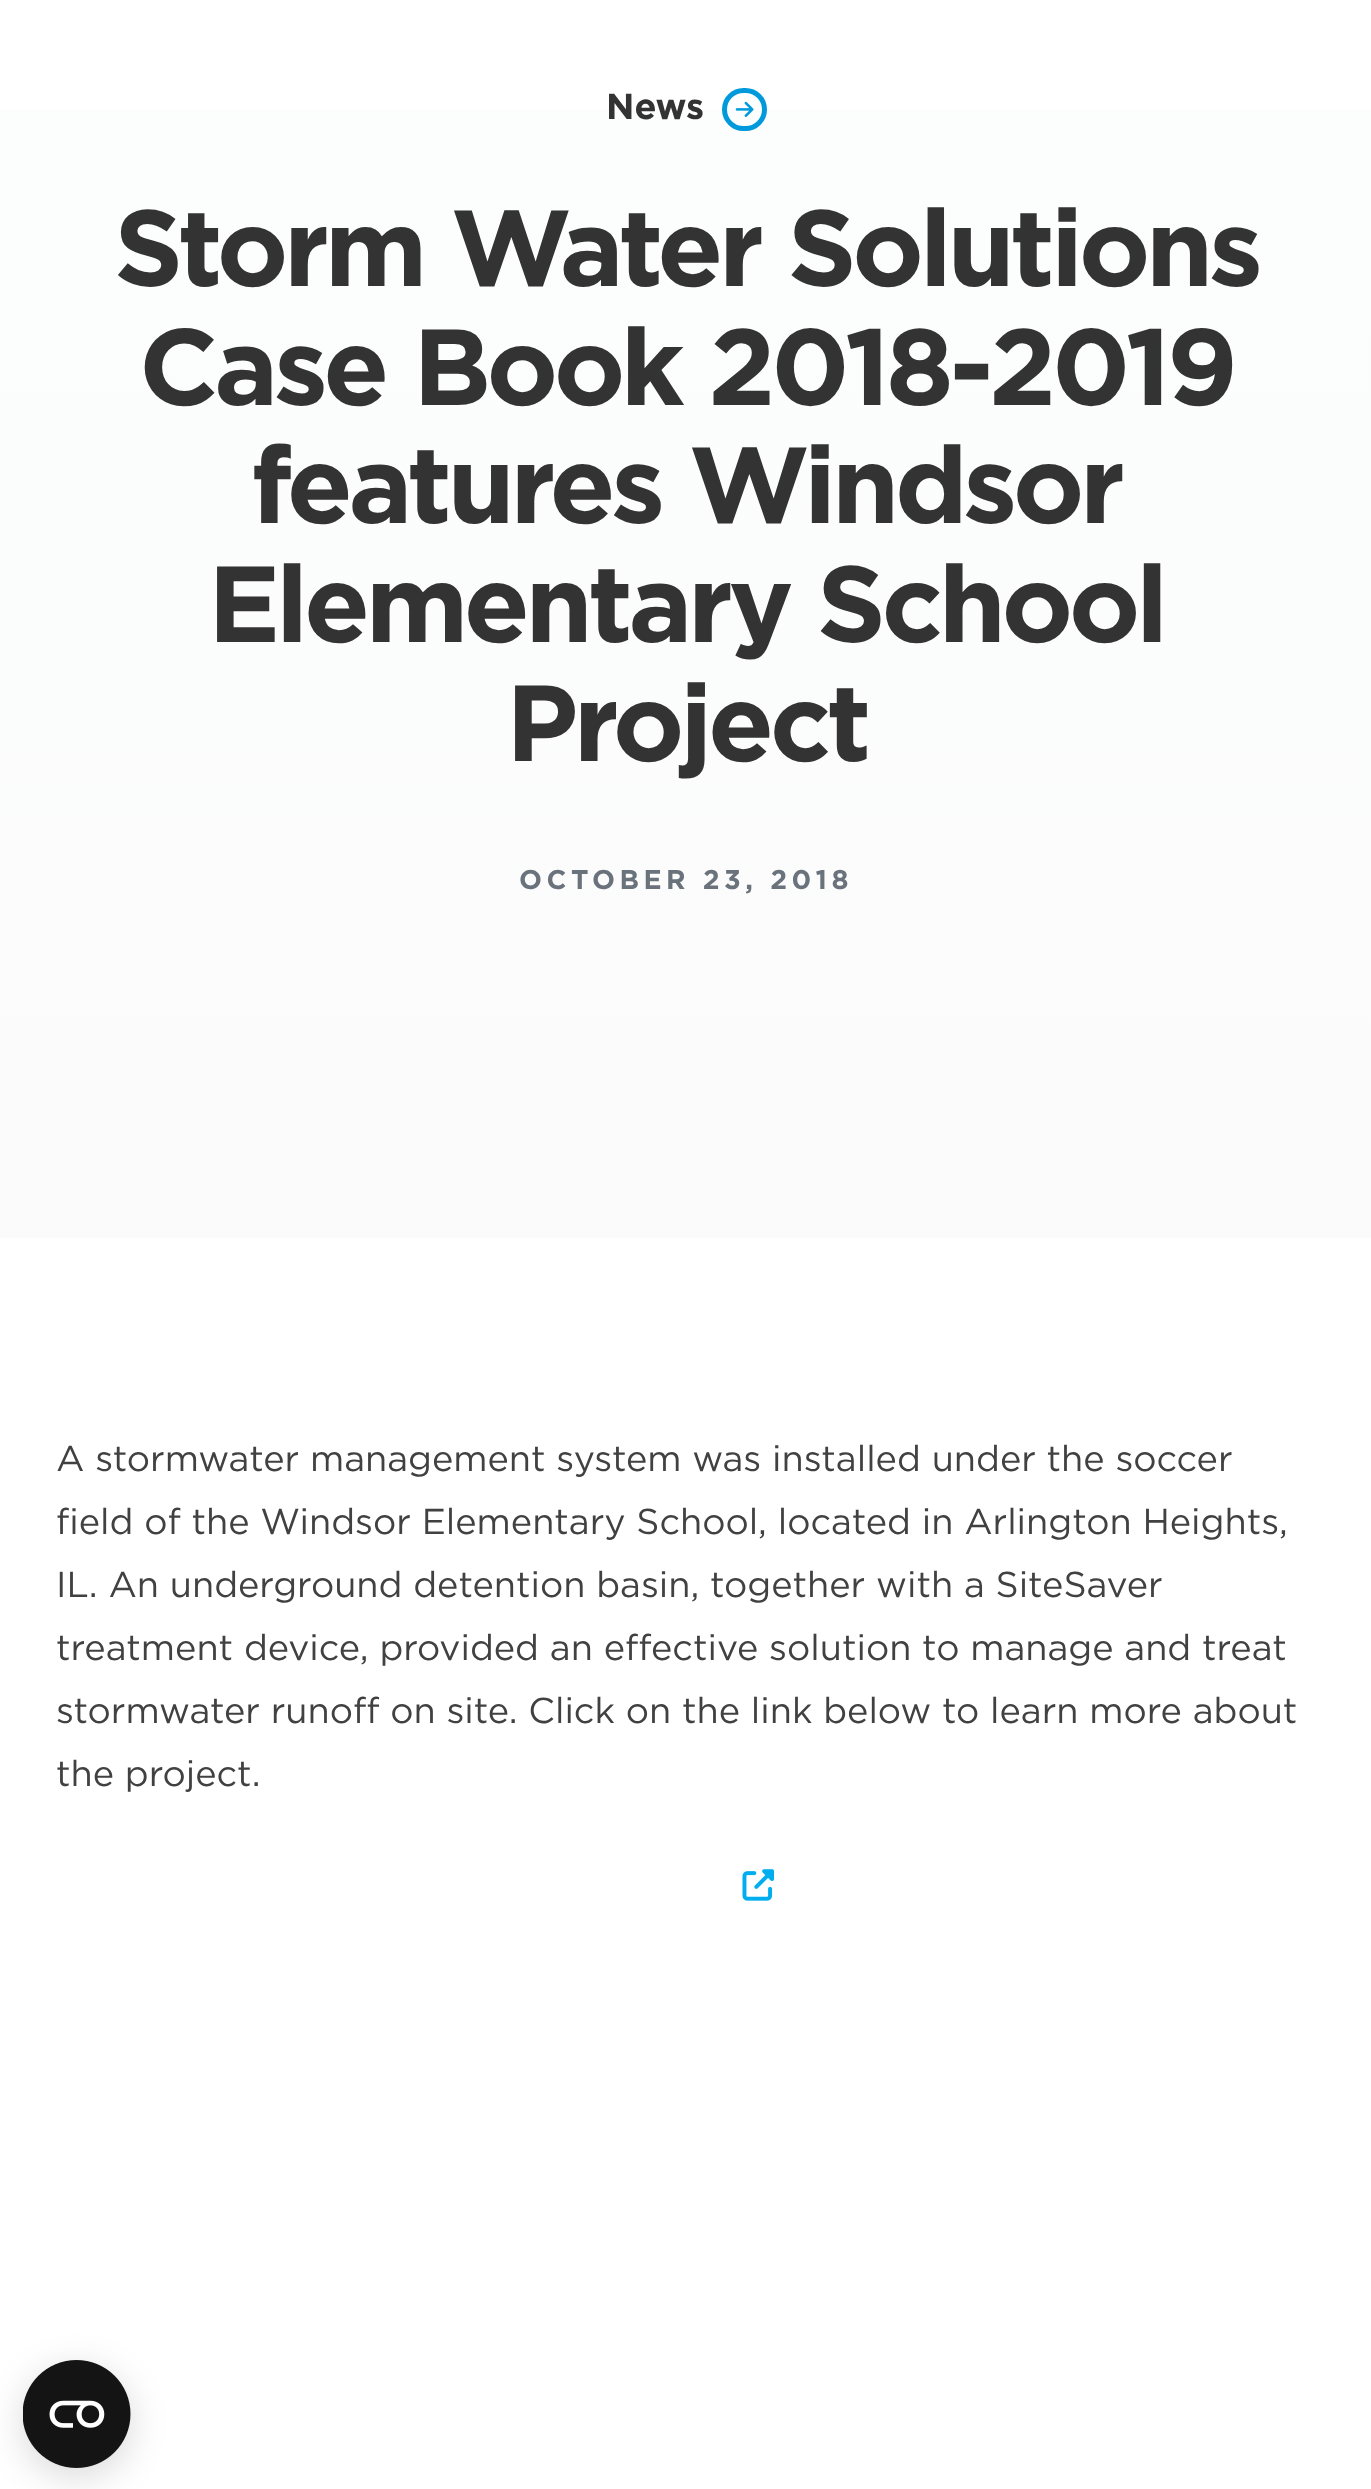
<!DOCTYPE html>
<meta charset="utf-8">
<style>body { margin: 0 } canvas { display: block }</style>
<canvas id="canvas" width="1371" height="2489"></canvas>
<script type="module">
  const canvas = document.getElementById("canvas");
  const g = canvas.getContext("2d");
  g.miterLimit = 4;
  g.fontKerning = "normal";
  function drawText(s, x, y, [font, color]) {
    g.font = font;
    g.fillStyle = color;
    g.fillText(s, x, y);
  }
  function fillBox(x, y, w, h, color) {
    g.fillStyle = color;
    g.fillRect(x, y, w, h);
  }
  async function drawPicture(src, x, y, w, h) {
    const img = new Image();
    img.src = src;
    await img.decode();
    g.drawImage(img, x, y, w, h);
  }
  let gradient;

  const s1 = ["bold 36px Gotham", "#333333"];
  const s2 = ["bold 108px Gotham", "#333333"];
  const s3 = ["bold 27px Gotham", "#6A737C"];
  const s4 = ["36px Gotham", "#414142"];

  fillBox(0, 0, 1371, 2489, "#FFFFFF");
  gradient = g.createLinearGradient(686, -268, 686, 1238);
  gradient.addColorStop(0, "#FDFEFE");
  gradient.addColorStop(1, "#FBFBFC");
  g.fillStyle = gradient;
  g.fillRect(0, 109, 1371, 1129);
  drawText("News", 606, 119, s1);
  g.beginPath();
  g.roundRect(724.5, 90.5, 40, 38, 19);
  g.strokeStyle = "#0099DB";
  g.lineWidth = 5;
  g.stroke();
  await drawPicture("pic1.png", 735, 101, 19, 16);
  g.letterSpacing = "-4.5px";
  drawText("Storm Water Solutions", 114, 286, s2);
  drawText("Case Book 2018-2019", 139, 405, s2);
  drawText("features Windsor", 251, 523, s2);
  drawText("Elementary School", 208, 642, s2);
  drawText("Project", 506, 761, s2);
  g.letterSpacing = "4.5px";
  drawText("OCTOBER 23, 2018", 519, 889, s3);
  g.letterSpacing = "0px";
  drawText("A stormwater management system was installed under the soccer", 56, 1471, s4);
  drawText("field of the Windsor Elementary School, located in Arlington Heights,", 56, 1534, s4);
  drawText("IL. An underground detention basin, together with a SiteSaver", 56, 1597, s4);
  drawText("treatment device, provided an effective solution to manage and treat", 56, 1660, s4);
  drawText("stormwater runoff on site. Click on the link below to learn more about", 56, 1723, s4);
  drawText("the project.", 56, 1786, s4);
  await drawPicture("pic2.png", 742, 1869, 32, 32);
  g.fillStyle = "rgba(0, 0, 0, 0.15)";
  g.filter = "blur(18px)";
  g.beginPath();
  g.roundRect(23, 2369, 108, 108, 54);
  g.fill();
  g.filter = "none";
  await drawPicture("pic3.png", 23, 2360, 108, 108);
</script>
